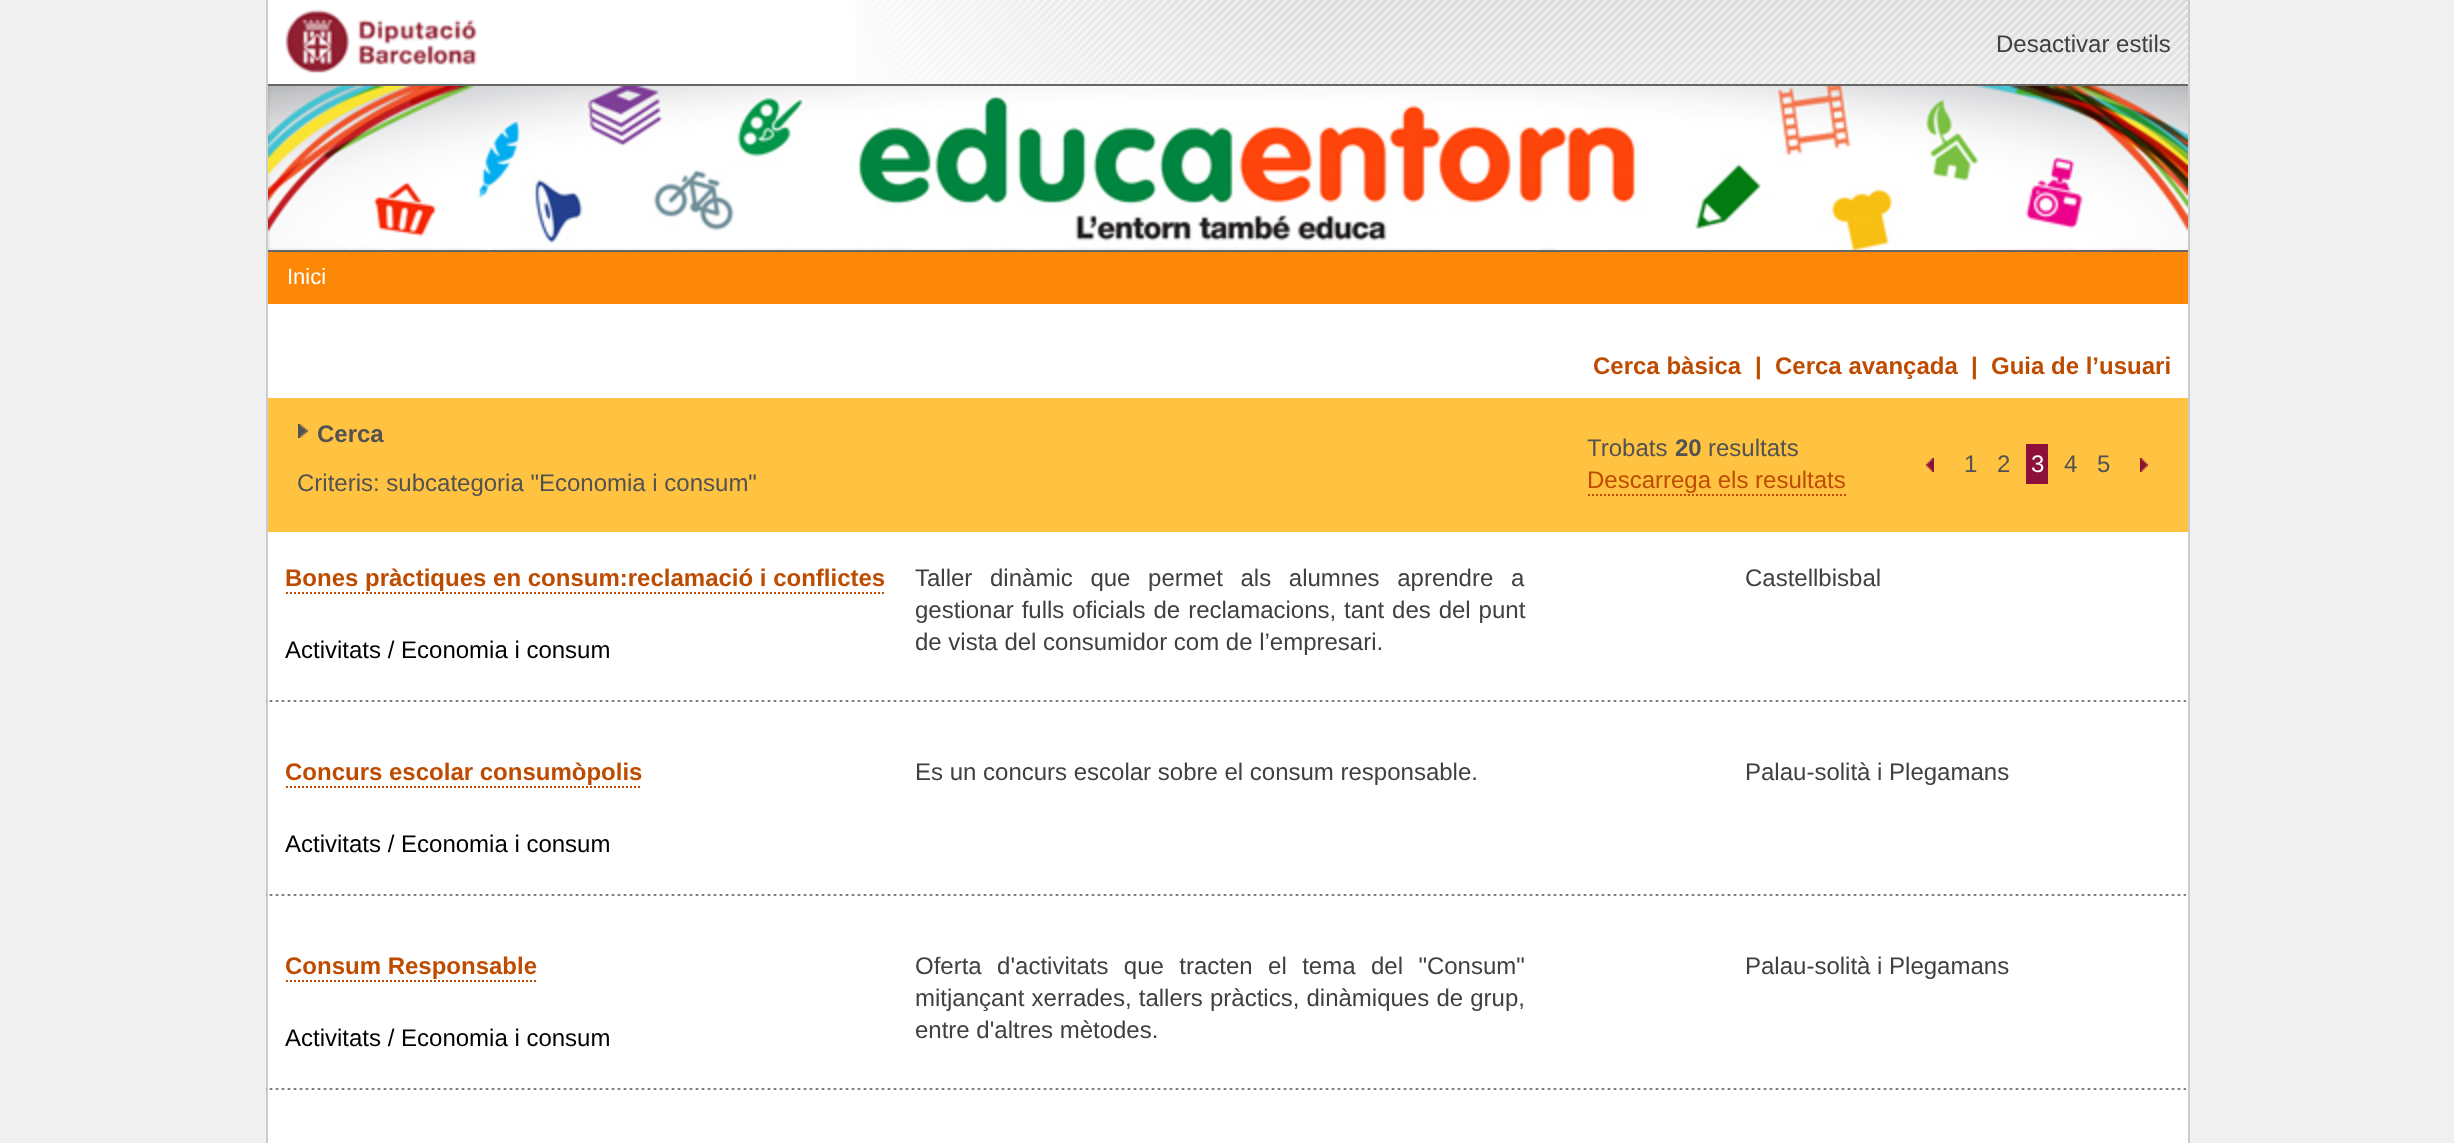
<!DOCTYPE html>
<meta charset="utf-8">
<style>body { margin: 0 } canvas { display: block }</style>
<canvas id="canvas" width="2454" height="1143"></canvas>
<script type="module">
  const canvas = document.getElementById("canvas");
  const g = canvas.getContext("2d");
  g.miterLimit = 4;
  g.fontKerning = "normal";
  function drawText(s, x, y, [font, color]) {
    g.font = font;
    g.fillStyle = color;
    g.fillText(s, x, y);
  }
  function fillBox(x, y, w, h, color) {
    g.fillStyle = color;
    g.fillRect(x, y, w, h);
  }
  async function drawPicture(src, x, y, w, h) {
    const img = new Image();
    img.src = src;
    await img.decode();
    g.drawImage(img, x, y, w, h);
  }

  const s1 = ["24px Liberation Sans", "#404040"];
  const s2 = ["22px Liberation Sans", "#FFFFFF"];
  const s3 = ["bold 24px Liberation Sans", "#BE4C00"];
  const s4 = ["bold 24px Liberation Sans", "#525252"];
  const s5 = ["24px Liberation Sans", "#525252"];
  const s6 = ["24px Liberation Sans", "#BE4C00"];
  const s7 = ["24px Liberation Sans", "#FFFFFF"];
  const s8 = ["24px Liberation Sans", "#000000"];

  fillBox(0, 0, 2454, 1143, "#F0F0F0");
  fillBox(268, 0, 1920, 1143, "#FFFFFF");
  fillBox(2188, 0, 2, 1143, "#CCCCCC");
  fillBox(266, 0, 2, 1143, "#CCCCCC");
  await drawPicture("pic1.png", 855, 0, 1333, 84);
  await drawPicture("pic2.png", 285, 9, 192, 64);
  drawText("Desactivar estils", 1996, 52, s1);
  fillBox(268, 84, 1920, 168, "#666666");
  await drawPicture("pic3.png", 268, 86, 1920, 164);
  fillBox(268, 252, 1920, 52, "#FD8807");
  drawText("Inici", 287, 284, s2);
  drawText("Cerca bàsica", 1593, 374, s3);
  drawText("|", 1755, 374, s3);
  drawText("Cerca avançada", 1775, 374, s3);
  drawText("|", 1971, 374, s3);
  drawText("Guia de l’usuari", 1991, 374, s3);
  fillBox(268, 398, 1920, 134, "#FFC341");
  await drawPicture("pic4.png", 298, 424, 10, 14);
  drawText("Cerca", 317, 442, s4);
  drawText("Criteris: subcategoria \"Economia i consum\"", 297, 491, s5);
  drawText("Trobats", 1587, 456, s5);
  drawText("20", 1675, 456, s4);
  drawText("resultats", 1708, 456, s5);
  drawText("Descarrega els resultats", 1587, 488, s6);
  g.beginPath();
  g.moveTo(1588, 495);
  g.lineTo(1846, 495);
  g.strokeStyle = "#BE4C00";
  g.lineWidth = 2;
  g.setLineDash([2, 2]);
  g.stroke();
  await drawPicture("pic5.png", 1926, 458, 8, 14);
  drawText("1", 1964, 472, s5);
  drawText("2", 1997, 472, s5);
  fillBox(2026, 444, 22, 40, "#8C1039");
  drawText("3", 2031, 472, s7);
  drawText("4", 2064, 472, s5);
  drawText("5", 2097, 472, s5);
  await drawPicture("pic6.png", 2140, 458, 8, 14);
  await drawPicture("pic7.png", 266, 700, 1920, 2);
  drawText("Bones pràctiques en consum:reclamació i conflictes", 285, 586, s3);
  g.beginPath();
  g.moveTo(286, 593);
  g.lineTo(886, 593);
  g.stroke();
  drawText("Activitats / Economia i consum", 285, 658, s8);
  g.wordSpacing = "11px";
  drawText("Taller dinàmic que permet als alumnes aprendre a", 915, 586, s1);
  g.wordSpacing = "1.25px";
  drawText("gestionar fulls oficials de reclamacions, tant des del punt", 915, 618, s1);
  g.wordSpacing = "0px";
  drawText("de vista del consumidor com de l’empresari.", 915, 650, s1);
  drawText("Castellbisbal", 1745, 586, s1);
  await drawPicture("pic7.png", 266, 894, 1920, 2);
  drawText("Concurs escolar consumòpolis", 285, 780, s3);
  g.beginPath();
  g.moveTo(286, 787);
  g.lineTo(642, 787);
  g.stroke();
  drawText("Activitats / Economia i consum", 285, 852, s8);
  drawText("Es un concurs escolar sobre el consum responsable.", 915, 780, s1);
  drawText("Palau-solità i Plegamans", 1745, 780, s1);
  await drawPicture("pic7.png", 266, 1088, 1920, 2);
  drawText("Consum Responsable", 285, 974, s3);
  g.beginPath();
  g.moveTo(286, 981);
  g.lineTo(538, 981);
  g.stroke();
  drawText("Activitats / Economia i consum", 285, 1046, s8);
  g.wordSpacing = "8.75px";
  drawText("Oferta d'activitats que tracten el tema del \"Consum\"", 915, 974, s1);
  g.wordSpacing = "0.5px";
  drawText("mitjançant xerrades, tallers pràctics, dinàmiques de grup,", 915, 1006, s1);
  g.wordSpacing = "0px";
  drawText("entre d'altres mètodes.", 915, 1038, s1);
  drawText("Palau-solità i Plegamans", 1745, 974, s1);
</script>
